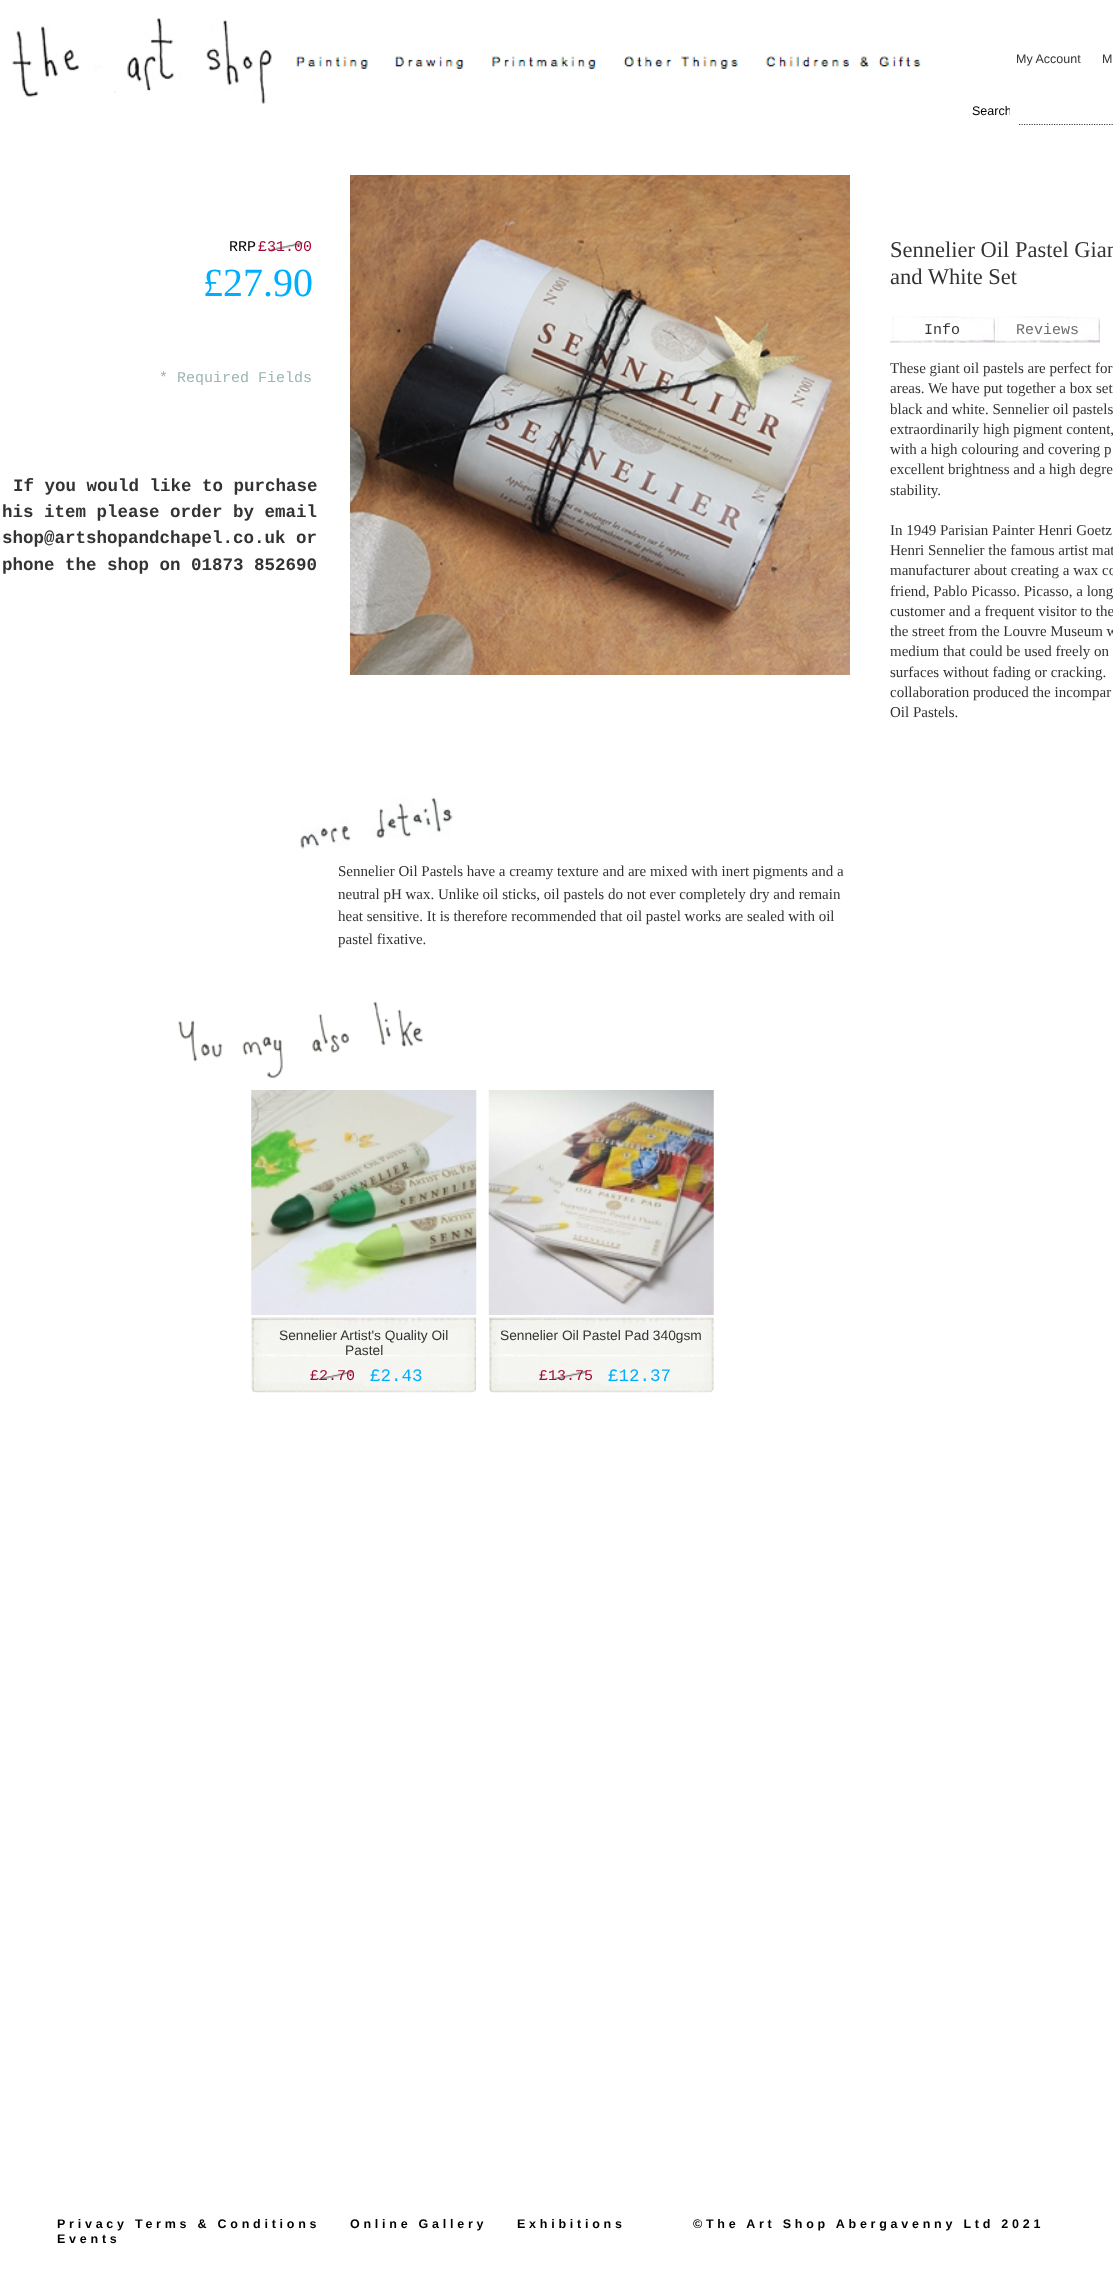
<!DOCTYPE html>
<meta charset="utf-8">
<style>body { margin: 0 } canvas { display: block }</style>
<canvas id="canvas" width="1113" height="2278"></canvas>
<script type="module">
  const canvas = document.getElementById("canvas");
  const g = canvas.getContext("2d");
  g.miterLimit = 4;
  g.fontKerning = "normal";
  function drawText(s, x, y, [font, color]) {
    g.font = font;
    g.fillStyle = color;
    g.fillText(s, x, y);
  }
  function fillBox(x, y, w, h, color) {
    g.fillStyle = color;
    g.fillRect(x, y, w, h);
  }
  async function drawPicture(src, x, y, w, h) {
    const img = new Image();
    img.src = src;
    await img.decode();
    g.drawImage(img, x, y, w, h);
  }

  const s1 = ["12.5px Liberation Sans", "#333333"];
  const s2 = ["12.5px Liberation Sans", "#000000"];
  const s3 = ["15px Liberation Mono", "#000000"];
  const s4 = ["15px Liberation Mono", "#A30B36"];
  const s5 = ["40px Liberation Serif", "#00AEFF"];
  const s6 = ["15px Liberation Mono", "#9BB5B3"];
  const s7 = ["bold 17.5px Liberation Mono", "#333333"];
  const s8 = ["22.5px Liberation Serif", "#333333"];
  const s9 = ["15px Liberation Mono", "#333333"];
  const s10 = ["15px Liberation Mono", "#6D6D6D"];
  const s11 = ["15px Liberation Serif", "#333333"];
  const s12 = ["13.75px Liberation Sans", "#333333"];
  const s13 = ["17.5px Liberation Mono", "#00AEFF"];
  const s14 = ["bold 12.5px Liberation Sans", "#000000"];

  fillBox(0, 0, 1113, 2278, "#FFFFFF");
  await drawPicture("pic1.png", 296, 56, 72, 14);
  await drawPicture("pic2.png", 394, 56, 70, 14);
  await drawPicture("pic3.png", 491, 56, 106, 14);
  await drawPicture("pic4.png", 623, 56, 115, 14);
  await drawPicture("pic5.png", 766, 56, 155, 12);
  await drawPicture("pic6.png", 12, 17, 260, 87);
  drawText("My Account", 1016, 63, s1);
  drawText("M", 1102, 63, s1);
  g.save();
  g.beginPath();
  g.rect(940, 103, 70, 18);
  g.clip();
  drawText("Search", 972, 115, s2);
  g.restore();
  g.beginPath();
  g.moveTo(1019, 124.5);
  g.lineTo(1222.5, 124.5);
  g.strokeStyle = "#404040";
  g.lineWidth = 1.2;
  g.setLineDash([1.25, 1.25]);
  g.stroke();
  drawText("RRP", 229, 251, s3);
  await drawPicture("pic7.png", 268, 242, 35, 10);
  drawText("£31.00", 258, 251, s4);
  drawText("£27.90", 203, 296, s5);
  drawText("* Required Fields", 159, 382, s6);
  drawText("If you would like to purchase", 13, 491, s7);
  drawText("his item please order by email", 2, 517, s7);
  drawText("shop@artshopandchapel.co.uk or", 2, 543, s7);
  drawText("phone the shop on 01873 852690", 2, 570, s7);
  await drawPicture("pic8.png", 350, 175, 500, 500);
  drawText("Sennelier Oil Pastel Gian", 890, 257, s8);
  drawText("and White Set", 890, 284, s8);
  await drawPicture("pic9.png", 890, 316, 105, 27);
  drawText("Info", 924, 334, s9);
  await drawPicture("pic10.png", 995, 316, 105, 27);
  drawText("Reviews", 1016, 334, s10);
  drawText("These giant oil pastels are perfect for", 890, 373, s11);
  drawText("areas. We have put together a box set", 890, 393, s11);
  drawText("black and white. Sennelier oil pastels", 890, 414, s11);
  drawText("extraordinarily high pigment content,", 890, 434, s11);
  drawText("with a high colouring and covering p", 890, 454, s11);
  drawText("excellent brightness and a high degre", 890, 474, s11);
  drawText("stability.", 890, 495, s11);
  drawText("In 1949 Parisian Painter Henri Goetz", 890, 535, s11);
  drawText("Henri Sennelier the famous artist mat", 890, 555, s11);
  drawText("manufacturer about creating a wax co", 890, 575, s11);
  drawText("friend, Pablo Picasso. Picasso, a long", 890, 596, s11);
  drawText("customer and a frequent visitor to the", 890, 616, s11);
  drawText("the street from the Louvre Museum w", 890, 636, s11);
  drawText("medium that could be used freely on", 890, 656, s11);
  drawText("surfaces without fading or cracking.", 890, 677, s11);
  drawText("collaboration produced the incompar", 890, 697, s11);
  drawText("Oil Pastels.", 890, 717, s11);
  await drawPicture("pic11.png", 300, 797, 153, 52);
  drawText("Sennelier Oil Pastels have a creamy texture and are mixed with inert pigments and a", 338, 876, s11);
  drawText("neutral pH wax. Unlike oil sticks, oil pastels do not ever completely dry and remain", 338, 899, s11);
  drawText("heat sensitive. It is therefore recommended that oil pastel works are sealed with oil", 338, 921, s11);
  drawText("pastel fixative.", 338, 944, s11);
  await drawPicture("pic12.png", 178, 1001, 245, 78);
  await drawPicture("pic13.png", 251, 1317, 226, 76);
  await drawPicture("pic14.png", 251, 1090, 226, 225);
  drawText("Sennelier Artist's Quality Oil", 279, 1340, s12);
  drawText("Pastel", 345, 1355, s12);
  await drawPicture("pic15.png", 318, 1371, 35, 9);
  drawText("£2.70", 310, 1380, s4);
  fillBox(364, 1371, 59, 15, "#F5F6F1");
  drawText("£2.43", 370, 1381, s13);
  await drawPicture("pic16.png", 489, 1317, 225, 76);
  await drawPicture("pic17.png", 488, 1090, 226, 225);
  drawText("Sennelier Oil Pastel Pad 340gsm", 500, 1340, s12);
  await drawPicture("pic18.png", 552, 1371, 35, 9);
  drawText("£13.75", 539, 1380, s4);
  fillBox(601, 1371, 68, 15, "#F5F6F1");
  drawText("£12.37", 608, 1381, s13);
  g.letterSpacing = "3.75px";
  drawText("Privacy Terms & Conditions", 57, 2228, s14);
  drawText("Online Gallery", 350, 2228, s14);
  drawText("Exhibitions", 517, 2228, s14);
  drawText("Events", 57, 2243, s14);
  drawText("©The Art Shop Abergavenny Ltd 2021", 693, 2228, s14);
</script>
